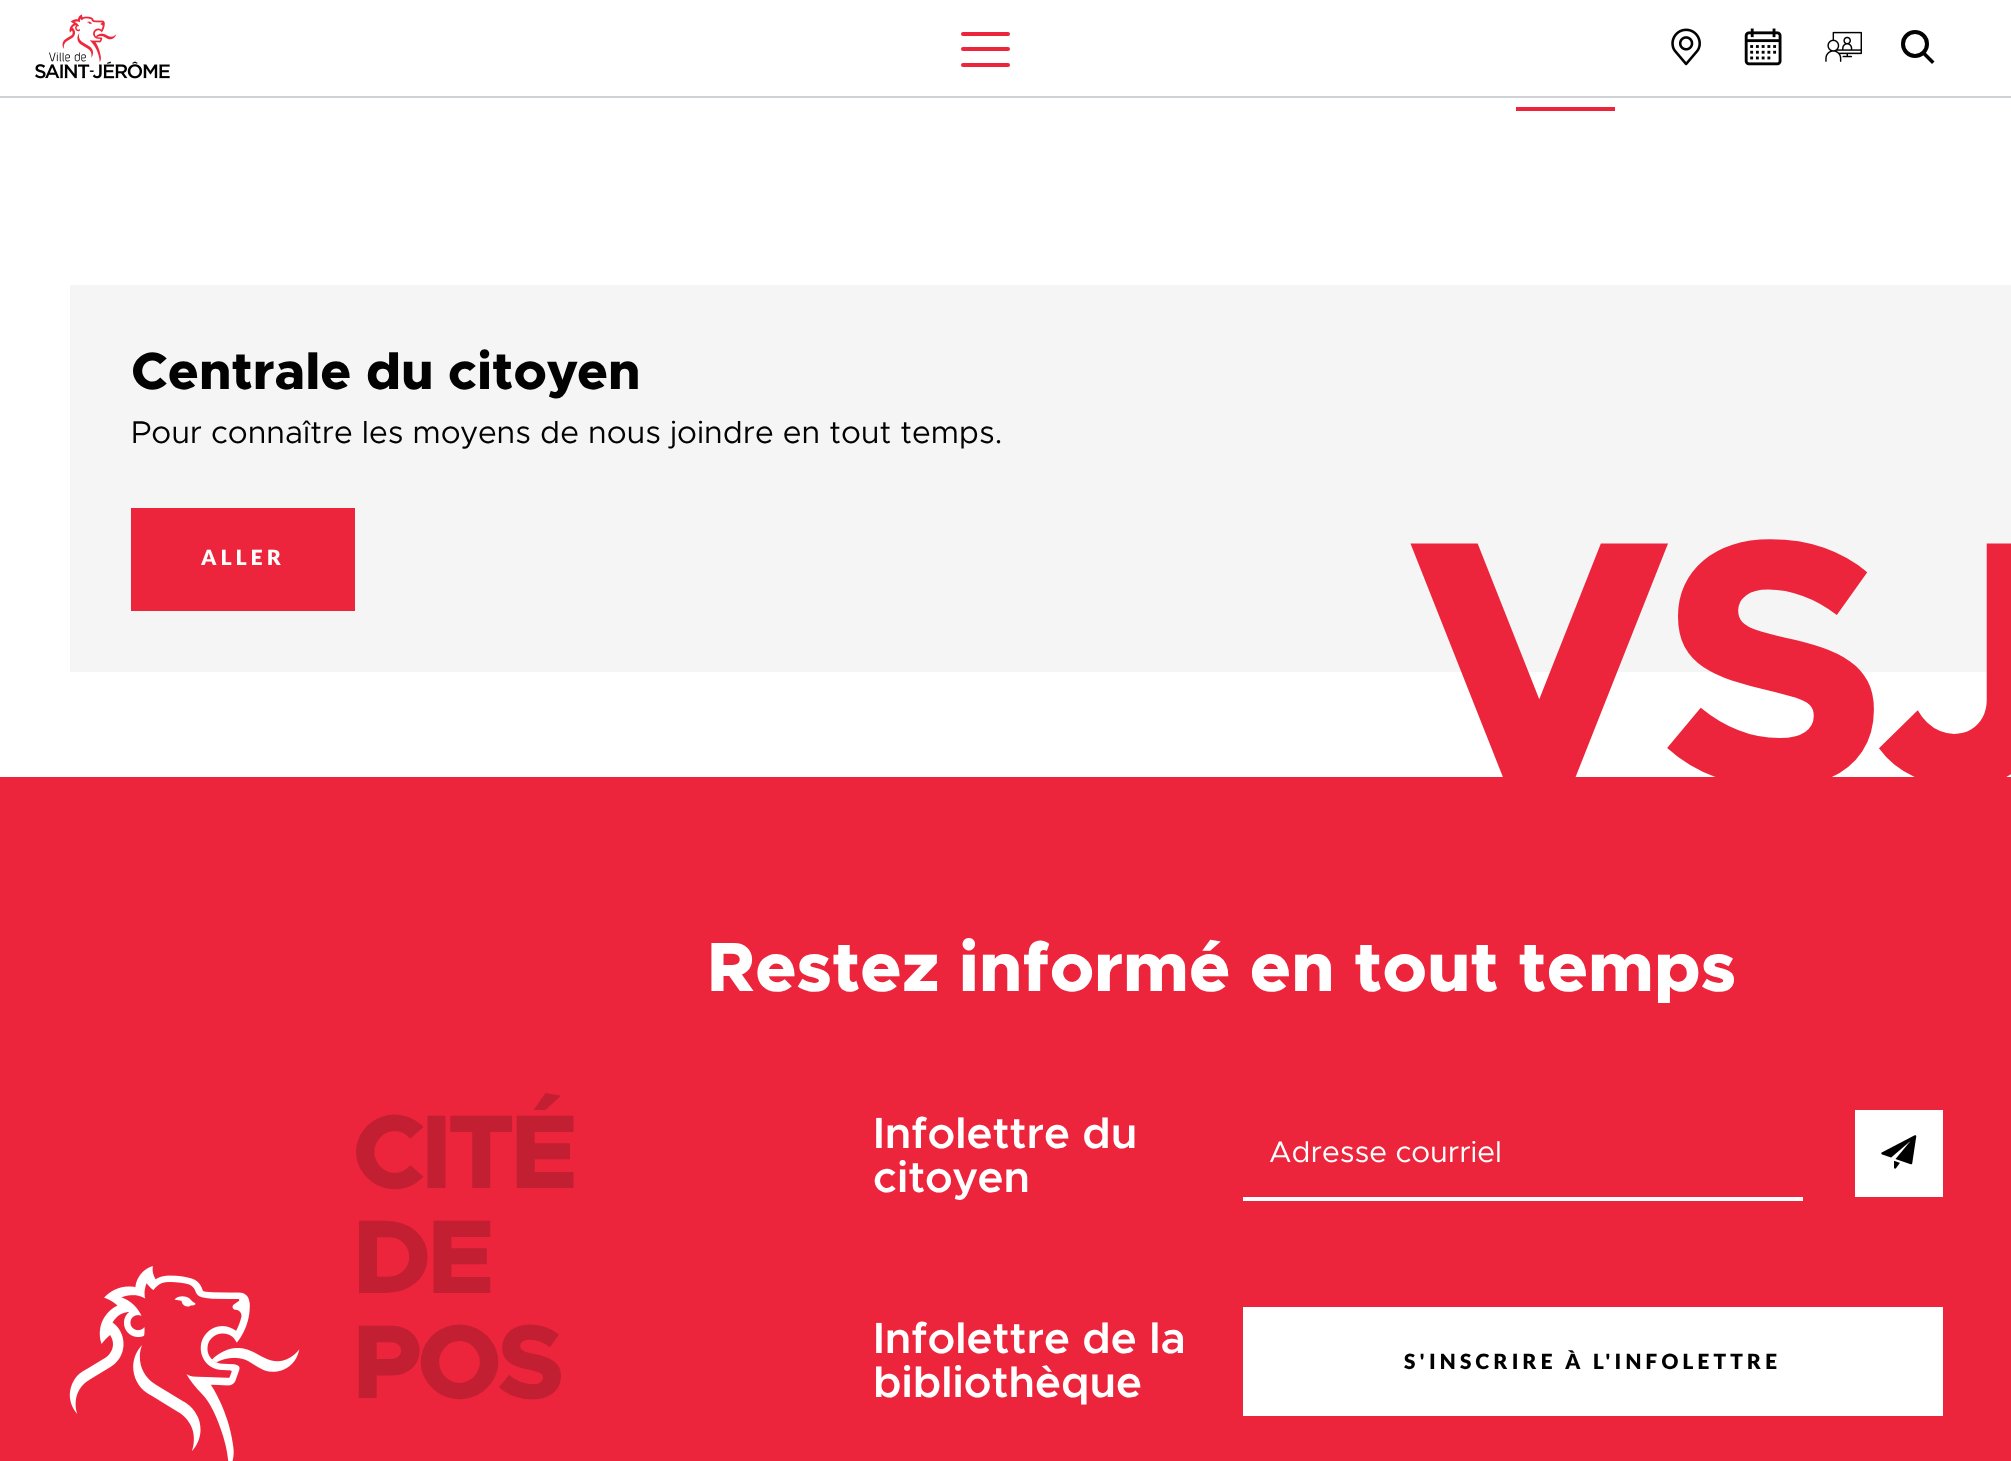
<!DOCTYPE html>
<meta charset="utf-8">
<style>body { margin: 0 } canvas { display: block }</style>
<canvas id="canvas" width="2011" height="1461"></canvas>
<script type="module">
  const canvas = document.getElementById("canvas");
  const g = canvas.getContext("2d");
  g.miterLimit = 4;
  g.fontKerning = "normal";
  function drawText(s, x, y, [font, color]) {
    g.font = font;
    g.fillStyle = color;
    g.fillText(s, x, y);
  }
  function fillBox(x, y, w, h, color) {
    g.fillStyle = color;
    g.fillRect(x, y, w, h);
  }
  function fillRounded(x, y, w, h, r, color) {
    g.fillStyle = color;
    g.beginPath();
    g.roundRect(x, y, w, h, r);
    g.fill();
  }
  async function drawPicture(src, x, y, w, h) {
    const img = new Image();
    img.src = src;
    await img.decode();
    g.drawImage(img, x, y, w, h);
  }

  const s1 = ["800 52.5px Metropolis", "#020202"];
  const s2 = ["31.5px Metropolis", "#020202"];
  const s3 = ["900 21px Lato", "#FFFFFF"];
  const s4 = ["800 350px Metropolis", "#ED253C"];
  const s5 = ["800 105px Metropolis", "#C31F32"];
  const s6 = ["800 70px Metropolis", "#FFFFFF"];
  const s7 = ["600 43.75px Metropolis", "#FFFFFF"];
  const s8 = ["29.75px Metropolis", "#FFFFFF"];
  const s9 = ["900 21px Lato", "#020202"];

  fillBox(0, 0, 2011, 1461, "#FFFFFF");
  fillBox(0, 96, 2011, 2, "#CED2D4");
  await drawPicture("pic1.png", 35, 14, 135, 65);
  fillRounded(961, 63, 49, 4, 2, "#ED253C");
  fillRounded(961, 32, 49, 4, 2, "#ED253C");
  fillRounded(961, 47, 49, 4, 2, "#ED253C");
  await drawPicture("pic2.png", 1671, 28, 30, 38);
  await drawPicture("pic3.png", 1744, 28, 38, 38);
  await drawPicture("pic4.png", 1825, 31, 37, 31);
  g.beginPath();
  g.arc(1915, 44, 12, 0, Math.PI * 2);
  g.strokeStyle = "#020202";
  g.lineWidth = 4;
  g.stroke();
  g.fillStyle = "#020202";
  g.beginPath();
  g.moveTo(1924, 51);
  g.lineTo(1934.5, 61.5);
  g.lineTo(1932, 64);
  g.lineTo(1921.5, 53.5);
  g.closePath();
  g.fill();
  fillBox(1516, 107, 99, 4, "#ED253C");
  fillBox(70, 285, 1941, 387, "#F5F5F5");
  drawText("Centrale du citoyen", 131, 389, s1);
  drawText("Pour connaître les moyens de nous joindre en tout temps.", 131, 443, s2);
  fillBox(131, 508, 224, 103, "#ED253C");
  g.letterSpacing = "4.2px";
  drawText("ALLER", 201, 565, s3);
  fillBox(0, 777, 2011, 684, "#ED253C");
  g.letterSpacing = "-9px";
  drawText("VSJ", 1408, 784, s4);
  await drawPicture("pic5.png", 69, 1266, 231, 195);
  g.letterSpacing = "-5px";
  drawText("CITÉ", 352, 1188, s5);
  drawText("DE", 352, 1293, s5);
  drawText("POS", 352, 1398, s5);
  g.letterSpacing = "0px";
  drawText("Restez informé en tout temps", 707, 991, s6);
  drawText("Infolettre du", 873, 1148, s7);
  drawText("citoyen", 873, 1192, s7);
  fillBox(1243, 1197, 560, 4, "#FFFFFF");
  drawText("Adresse courriel", 1269, 1162, s8);
  fillBox(1855, 1110, 88, 87, "#FFFFFF");
  await drawPicture("pic6.png", 1881, 1135, 36, 34);
  drawText("Infolettre de la", 873, 1353, s7);
  drawText("bibliothèque", 873, 1397, s7);
  fillBox(1243, 1307, 700, 109, "#FFFFFF");
  g.letterSpacing = "4.2px";
  drawText("S'INSCRIRE À L'INFOLETTRE", 1404, 1369, s9);
</script>
